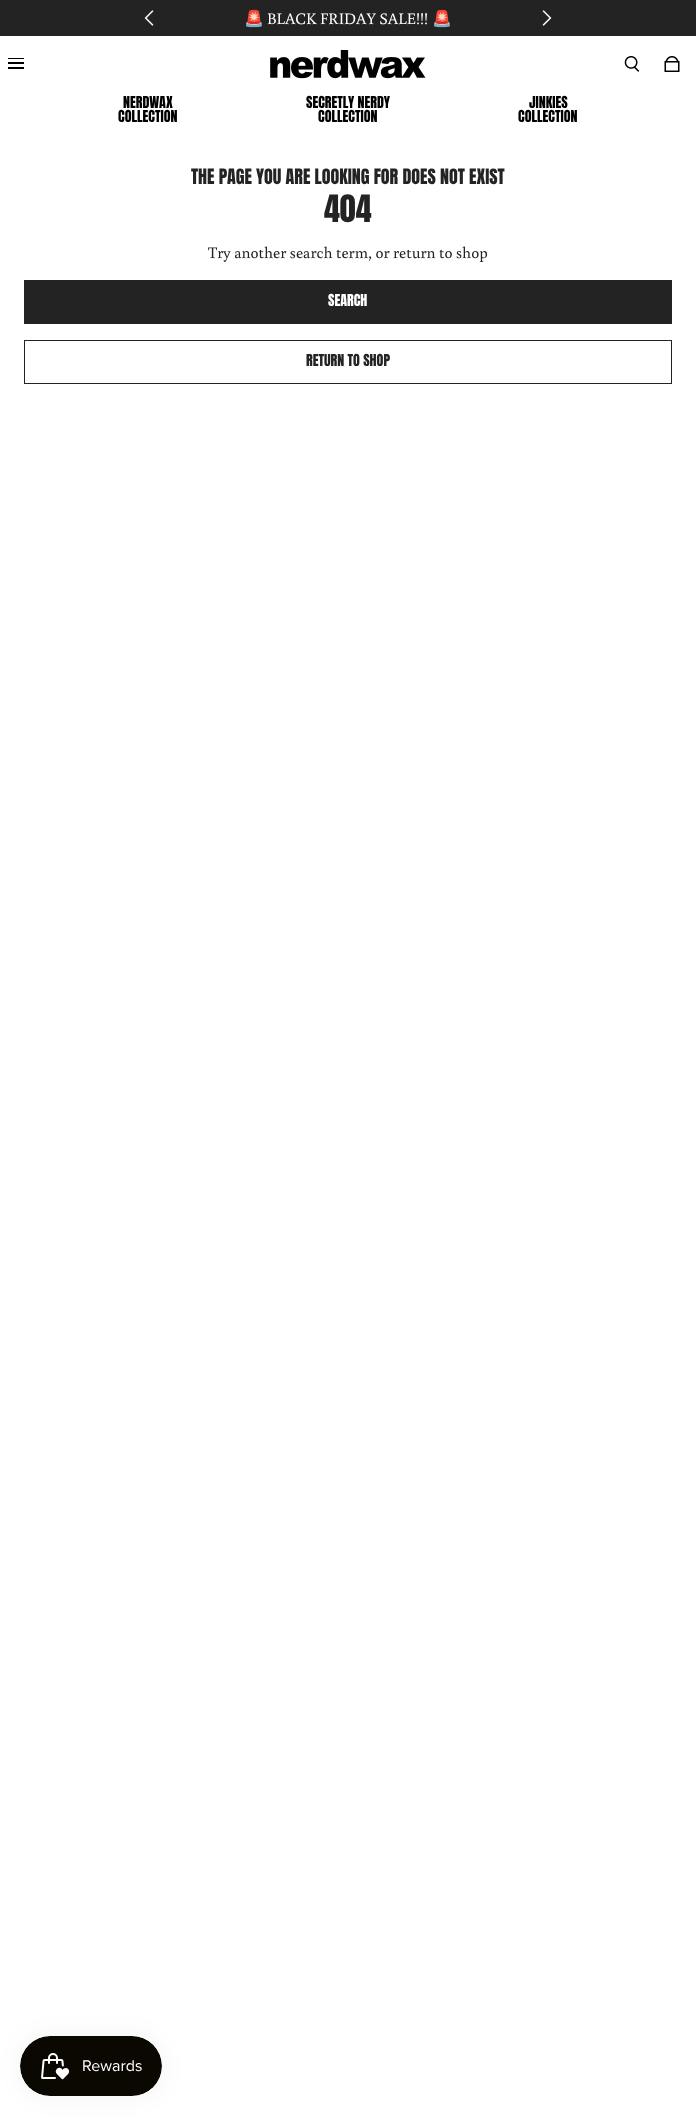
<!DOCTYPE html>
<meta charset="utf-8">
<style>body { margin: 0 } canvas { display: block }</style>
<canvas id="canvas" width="696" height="2116"></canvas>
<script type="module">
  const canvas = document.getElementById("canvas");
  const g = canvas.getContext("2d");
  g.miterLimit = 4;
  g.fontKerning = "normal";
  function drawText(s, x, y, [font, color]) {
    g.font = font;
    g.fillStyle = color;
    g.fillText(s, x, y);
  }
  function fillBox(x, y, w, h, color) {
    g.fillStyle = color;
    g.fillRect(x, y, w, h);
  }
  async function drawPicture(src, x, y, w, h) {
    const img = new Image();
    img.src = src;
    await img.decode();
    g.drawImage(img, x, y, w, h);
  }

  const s1 = ["16px Noto Color Emoji", "#FFFFFF"];
  const s2 = ["16px Buenard", "#FFFFFF"];
  const s3 = ["14px Anton", "#000000"];
  const s4 = ["18px Anton", "#232323"];
  const s5 = ["32px Anton", "#232323"];
  const s6 = ["16px Buenard", "#232323"];
  const s7 = ["14px Anton", "#FFFFFF"];
  const s8 = ["14px Anton", "#232323"];

  fillBox(0, 0, 696, 2116, "#FFFFFF");
  fillBox(0, 0, 696, 36, "#232323");
  await drawPicture("pic1.png", 144, 10, 10, 16);
  drawText("🚨", 244, 24, s1);
  drawText("BLACK FRIDAY SALE!!!", 267, 24, s2);
  drawText("🚨", 432, 24, s1);
  await drawPicture("pic2.png", 542, 10, 10, 16);
  fillBox(8, 58, 16, 1, "#000000");
  fillBox(8, 62, 16, 2, "#000000");
  fillBox(8, 67, 16, 2, "#000000");
  await drawPicture("pic3.png", 270, 50, 156, 29);
  await drawPicture("pic4.png", 624, 56, 16, 16);
  await drawPicture("pic5.png", 664, 56, 16, 16);
  drawText("NERDWAX", 123, 108, s3);
  drawText("COLLECTION", 118, 122, s3);
  drawText("SECRETLY NERDY", 306, 108, s3);
  drawText("COLLECTION", 318, 122, s3);
  drawText("JINKIES", 529, 108, s3);
  drawText("COLLECTION", 518, 122, s3);
  drawText("THE PAGE YOU ARE LOOKING FOR DOES NOT EXIST", 191, 184, s4);
  drawText("404", 324, 222, s5);
  drawText("Try another search term, or return to shop", 208, 258, s6);
  g.strokeStyle = "#232323";
  g.strokeRect(24.5, 280.5, 647, 43);
  fillBox(25, 281, 646, 42, "#232323");
  drawText("SEARCH", 328, 306, s7);
  g.strokeRect(24.5, 340.5, 647, 43);
  drawText("RETURN TO SHOP", 306, 366, s8);
  g.fillStyle = "rgba(0, 0, 0, 0.05)";
  g.filter = "blur(12.5px)";
  g.beginPath();
  g.roundRect(20, 2036, 142, 60, 30);
  g.fill();
  g.filter = "none";
  await drawPicture("pic6.png", 20, 2036, 142, 60);
</script>
